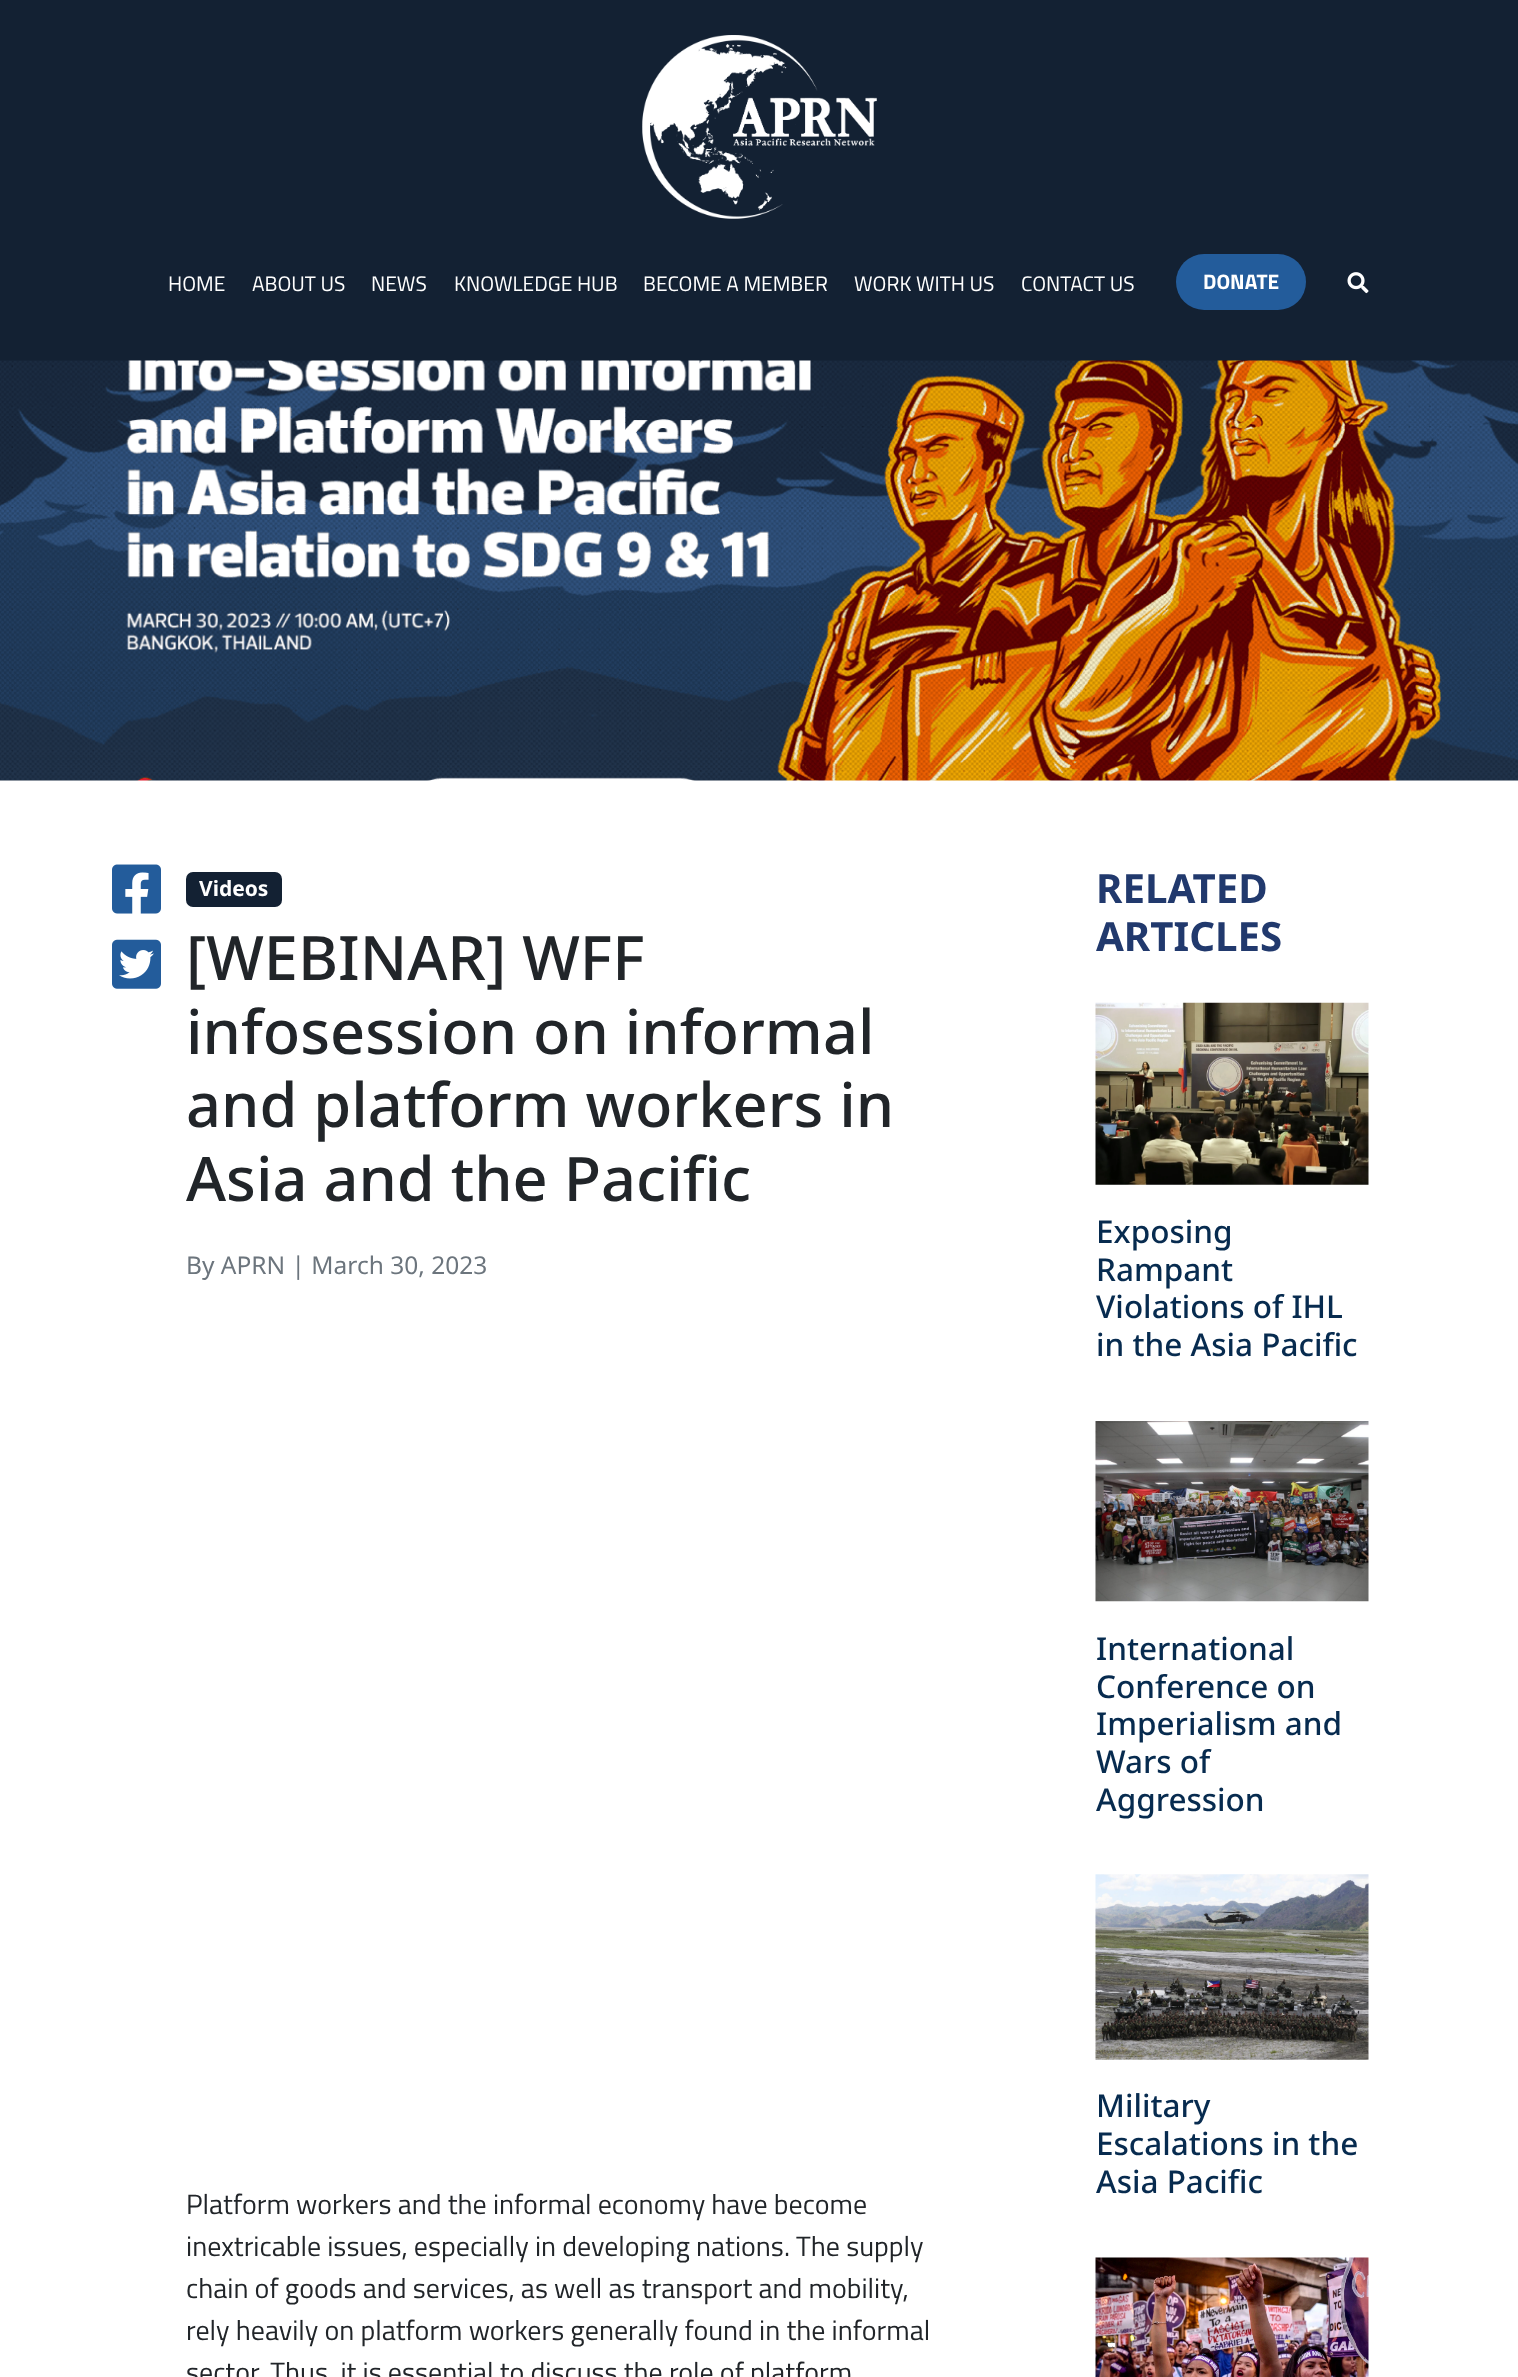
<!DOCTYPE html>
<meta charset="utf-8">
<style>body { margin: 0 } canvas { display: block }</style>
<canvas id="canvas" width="1518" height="2377"></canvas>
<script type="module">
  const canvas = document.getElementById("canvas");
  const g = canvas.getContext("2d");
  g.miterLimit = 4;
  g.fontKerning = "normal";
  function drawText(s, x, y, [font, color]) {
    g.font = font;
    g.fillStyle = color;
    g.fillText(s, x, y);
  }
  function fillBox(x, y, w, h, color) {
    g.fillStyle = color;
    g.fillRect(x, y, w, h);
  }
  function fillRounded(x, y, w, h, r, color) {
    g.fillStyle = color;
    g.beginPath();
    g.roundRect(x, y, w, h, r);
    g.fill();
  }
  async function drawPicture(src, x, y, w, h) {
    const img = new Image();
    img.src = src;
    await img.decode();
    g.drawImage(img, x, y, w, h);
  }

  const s1 = ["21px Titillium Web", "#FFFFFF"];
  const s2 = ["bold 21px Titillium Web", "#FFFFFF"];
  const s3 = ["bold 21px Noto Sans", "#FFFFFF"];
  const s4 = ["500 61.25px Noto Sans", "#212529"];
  const s5 = ["24.5px Noto Sans", "#6C757D"];
  const s6 = ["28px Titillium Web", "#212529"];
  const s7 = ["bold 40.25px Noto Sans", "#21396D"];
  const s8 = ["500 31.5px Noto Sans", "#072B4F"];

  fillBox(0, 0, 1518, 2377, "#FFFFFF");
  fillBox(0, 0, 1518, 361, "#132133");
  await drawPicture("pic1.png", 642, 35, 235, 184);
  drawText("HOME", 168, 291, s1);
  drawText("ABOUT US", 252, 291, s1);
  drawText("NEWS", 371, 291, s1);
  drawText("KNOWLEDGE HUB", 454, 291, s1);
  drawText("BECOME A MEMBER", 643, 291, s1);
  drawText("WORK WITH US", 854, 291, s1);
  drawText("CONTACT US", 1021, 291, s1);
  fillRounded(1176, 254, 130, 56, 28, "#235C9B");
  drawText("DONATE", 1203, 289, s2);
  await drawPicture("pic2.png", 1347, 272, 22, 22);
  await drawPicture("pic3.png", 0, 360, 1518, 421);
  await drawPicture("pic4.png", 112, 864, 49, 50);
  await drawPicture("pic5.png", 112, 939, 49, 50);
  fillRounded(186, 872, 96, 35, 7, "#132133");
  drawText("Videos", 199, 896, s3);
  drawText("[WEBINAR] WFF", 186, 980, s4);
  drawText("infosession on informal", 186, 1054, s4);
  drawText("and platform workers in", 186, 1127, s4);
  drawText("Asia and the Pacific", 186, 1201, s4);
  drawText("By APRN | March 30, 2023", 186, 1274, s5);
  drawText("Platform workers and the informal economy have become", 186, 2214, s6);
  drawText("inextricable issues, especially in developing nations. The supply", 186, 2256, s6);
  drawText("chain of goods and services, as well as transport and mobility,", 186, 2298, s6);
  drawText("rely heavily on platform workers generally found in the informal", 186, 2340, s6);
  drawText("sector. Thus, it is essential to discuss the role of platform", 186, 2382, s6);
  drawText("RELATED", 1096, 903, s7);
  drawText("ARTICLES", 1096, 951, s7);
  await drawPicture("pic6.png", 1095, 1002, 274, 183);
  drawText("Exposing", 1096, 1243, s8);
  drawText("Rampant", 1096, 1281, s8);
  drawText("Violations of IHL", 1096, 1318, s8);
  drawText("in the Asia Pacific", 1096, 1356, s8);
  await drawPicture("pic7.png", 1095, 1421, 274, 181);
  drawText("International", 1096, 1660, s8);
  drawText("Conference on", 1096, 1698, s8);
  drawText("Imperialism and", 1096, 1735, s8);
  drawText("Wars of", 1096, 1773, s8);
  drawText("Aggression", 1096, 1811, s8);
  await drawPicture("pic8.png", 1095, 1874, 274, 186);
  drawText("Military", 1096, 2117, s8);
  drawText("Escalations in the", 1096, 2155, s8);
  drawText("Asia Pacific", 1096, 2193, s8);
  await drawPicture("pic9.png", 1095, 2257, 274, 120);
</script>
